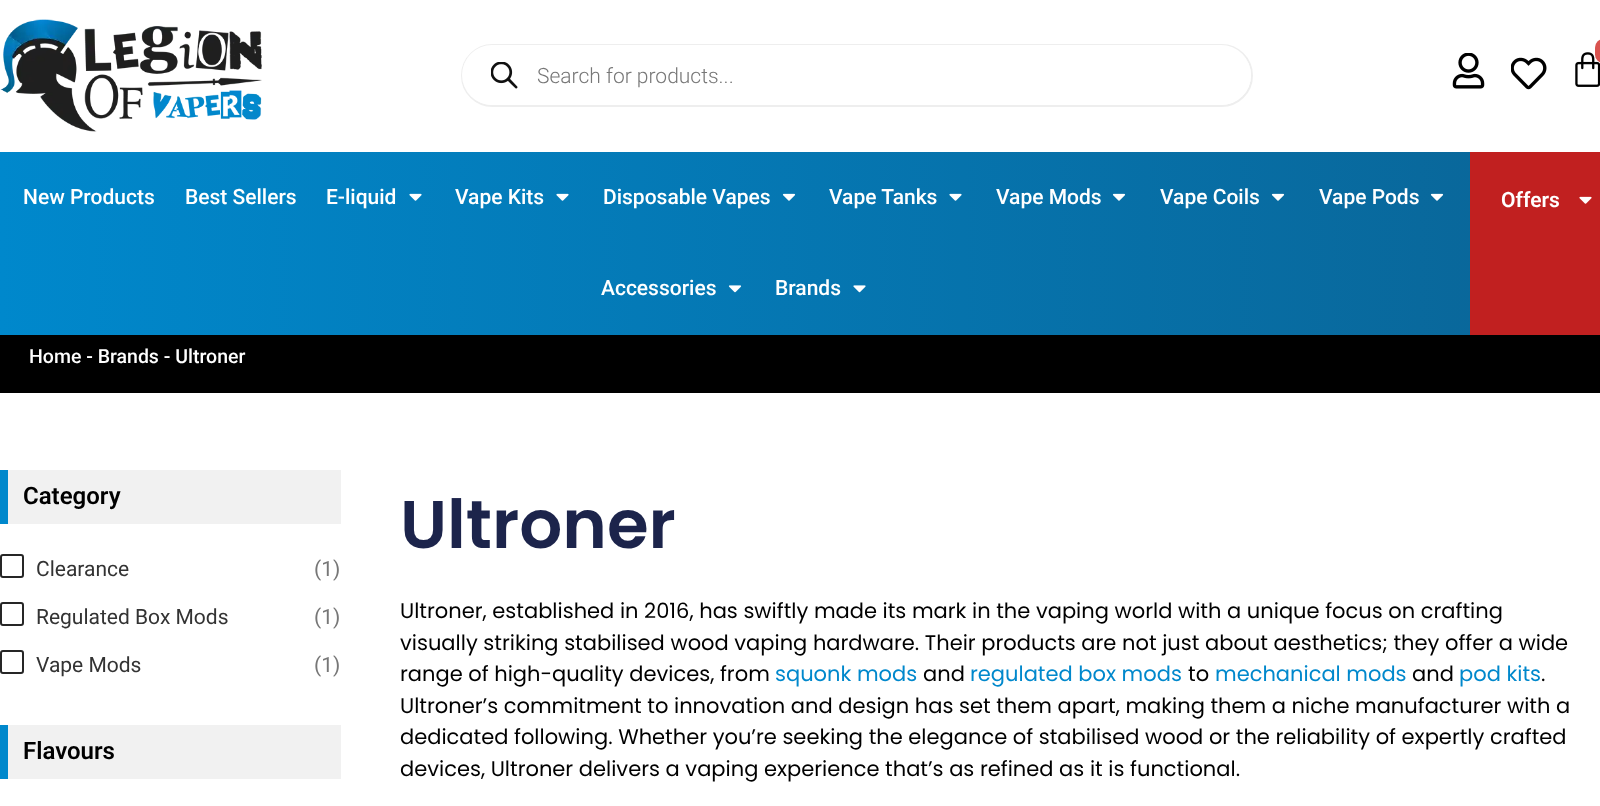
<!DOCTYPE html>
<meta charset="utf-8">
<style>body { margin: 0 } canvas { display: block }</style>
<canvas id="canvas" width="1600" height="806"></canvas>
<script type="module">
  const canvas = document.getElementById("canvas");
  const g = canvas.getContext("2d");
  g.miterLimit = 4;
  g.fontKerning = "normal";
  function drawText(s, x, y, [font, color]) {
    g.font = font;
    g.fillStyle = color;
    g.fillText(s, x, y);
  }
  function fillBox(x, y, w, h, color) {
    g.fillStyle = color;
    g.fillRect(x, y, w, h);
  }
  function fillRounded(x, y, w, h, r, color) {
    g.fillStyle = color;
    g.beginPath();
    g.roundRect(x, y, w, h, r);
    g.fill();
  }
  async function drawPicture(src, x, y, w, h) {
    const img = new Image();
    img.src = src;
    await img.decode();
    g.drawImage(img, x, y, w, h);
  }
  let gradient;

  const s1 = ["300 21px Roboto", "#777777"];
  const s2 = ["500 21px Roboto", "#FFFFFF"];
  const s3 = ["600 21px Roboto", "#FFFFFF"];
  const s4 = ["500 19.5px Roboto", "#FFFFFF"];
  const s5 = ["600 24px Roboto", "#000000"];
  const s6 = ["21px Roboto", "#333333"];
  const s7 = ["21px Roboto", "#777777"];
  const s8 = ["600 67.5px Poppins", "#1C244B"];
  const s9 = ["21px Poppins", "#000000"];
  const s10 = ["21px Poppins", "#0088CC"];

  fillBox(0, 0, 1600, 806, "#FFFFFF");
  await drawPicture("pic1.png", 0, 19, 262, 113);
  g.beginPath();
  g.roundRect(462, 45, 790, 61, 30.5);
  g.strokeStyle = "#EEEEEE";
  g.lineWidth = 2;
  g.stroke();
  fillRounded(462, 45, 789, 60, 30, "#FFFFFF");
  await drawPicture("pic2.png", 491, 62, 27, 27);
  drawText("Search for products...", 537, 83, s1);
  await drawPicture("pic3.png", 1452, 53, 33, 36);
  await drawPicture("pic4.png", 1511, 57, 36, 33);
  await drawPicture("pic5.png", 1575, 52, 25, 35);
  fillRounded(1595, 39, 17, 24, 12, "#D9534F");
  gradient = g.createLinearGradient(0, 243, 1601, 243);
  gradient.addColorStop(0, "#0088CC");
  gradient.addColorStop(1, "#0A6597");
  g.fillStyle = gradient;
  g.fillRect(0, 152, 1470, 183);
  drawText("New Products", 23, 204, s2);
  drawText("Best Sellers", 185, 204, s2);
  drawText("E-liquid", 326, 204, s2);
  await drawPicture("pic6.png", 409, 193, 13, 8);
  drawText("Vape Kits", 455, 204, s2);
  await drawPicture("pic7.png", 556, 193, 13, 8);
  drawText("Disposable Vapes", 603, 204, s2);
  await drawPicture("pic8.png", 782, 193, 14, 8);
  drawText("Vape Tanks", 829, 204, s2);
  await drawPicture("pic9.png", 949, 193, 13, 8);
  drawText("Vape Mods", 996, 204, s2);
  await drawPicture("pic10.png", 1112, 193, 14, 8);
  drawText("Vape Coils", 1160, 204, s2);
  await drawPicture("pic11.png", 1271, 193, 14, 8);
  drawText("Vape Pods", 1319, 204, s2);
  await drawPicture("pic12.png", 1430, 193, 14, 8);
  drawText("Accessories", 601, 295, s2);
  await drawPicture("pic13.png", 728, 285, 14, 8);
  drawText("Brands", 775, 295, s2);
  await drawPicture("pic14.png", 853, 285, 13, 8);
  fillBox(1470, 152, 130, 183, "#C12020");
  drawText("Offers", 1501, 207, s3);
  await drawPicture("pic15.png", 1579, 196, 13, 8);
  fillBox(0, 335, 1600, 58, "#000000");
  drawText("Home - Brands - Ultroner", 29, 363, s4);
  fillBox(8, 470, 333, 54, "#F1F1F1");
  fillBox(0, 470, 8, 54, "#0088CC");
  drawText("Category", 23, 504, s5);
  g.beginPath();
  g.roundRect(1, 555, 22, 22, 2);
  g.strokeStyle = "#262626";
  g.stroke();
  drawText("Clearance", 36, 576, s6);
  drawText("(1)", 314, 576, s7);
  g.beginPath();
  g.roundRect(1, 603, 22, 22, 2);
  g.stroke();
  drawText("Regulated Box Mods", 36, 624, s6);
  drawText("(1)", 314, 624, s7);
  g.beginPath();
  g.roundRect(1, 651, 22, 22, 2);
  g.stroke();
  drawText("Vape Mods", 36, 672, s6);
  drawText("(1)", 314, 672, s7);
  fillBox(8, 725, 333, 54, "#F1F1F1");
  fillBox(0, 725, 8, 54, "#0088CC");
  drawText("Flavours", 23, 759, s5);
  drawText("Ultroner", 400, 548, s8);
  drawText("Ultroner, established in 2016, has swiftly made its mark in the vaping world with a unique focus on crafting", 400, 618, s9);
  drawText("visually striking stabilised wood vaping hardware. Their products are not just about aesthetics; they offer a wide", 400, 650, s9);
  drawText("range of high-quality devices, from", 400, 681, s9);
  drawText("squonk mods", 775, 681, s10);
  drawText("and", 923, 681, s9);
  drawText("regulated box mods", 970, 681, s10);
  drawText("to", 1188, 681, s9);
  drawText("mechanical mods", 1215, 681, s10);
  drawText("and", 1412, 681, s9);
  drawText("pod kits", 1459, 681, s10);
  drawText(".", 1541, 681, s9);
  drawText("Ultroner’s commitment to innovation and design has set them apart, making them a niche manufacturer with a", 400, 713, s9);
  drawText("dedicated following. Whether you’re seeking the elegance of stabilised wood or the reliability of expertly crafted", 400, 744, s9);
  drawText("devices, Ultroner delivers a vaping experience that’s as refined as it is functional.", 400, 776, s9);
</script>
